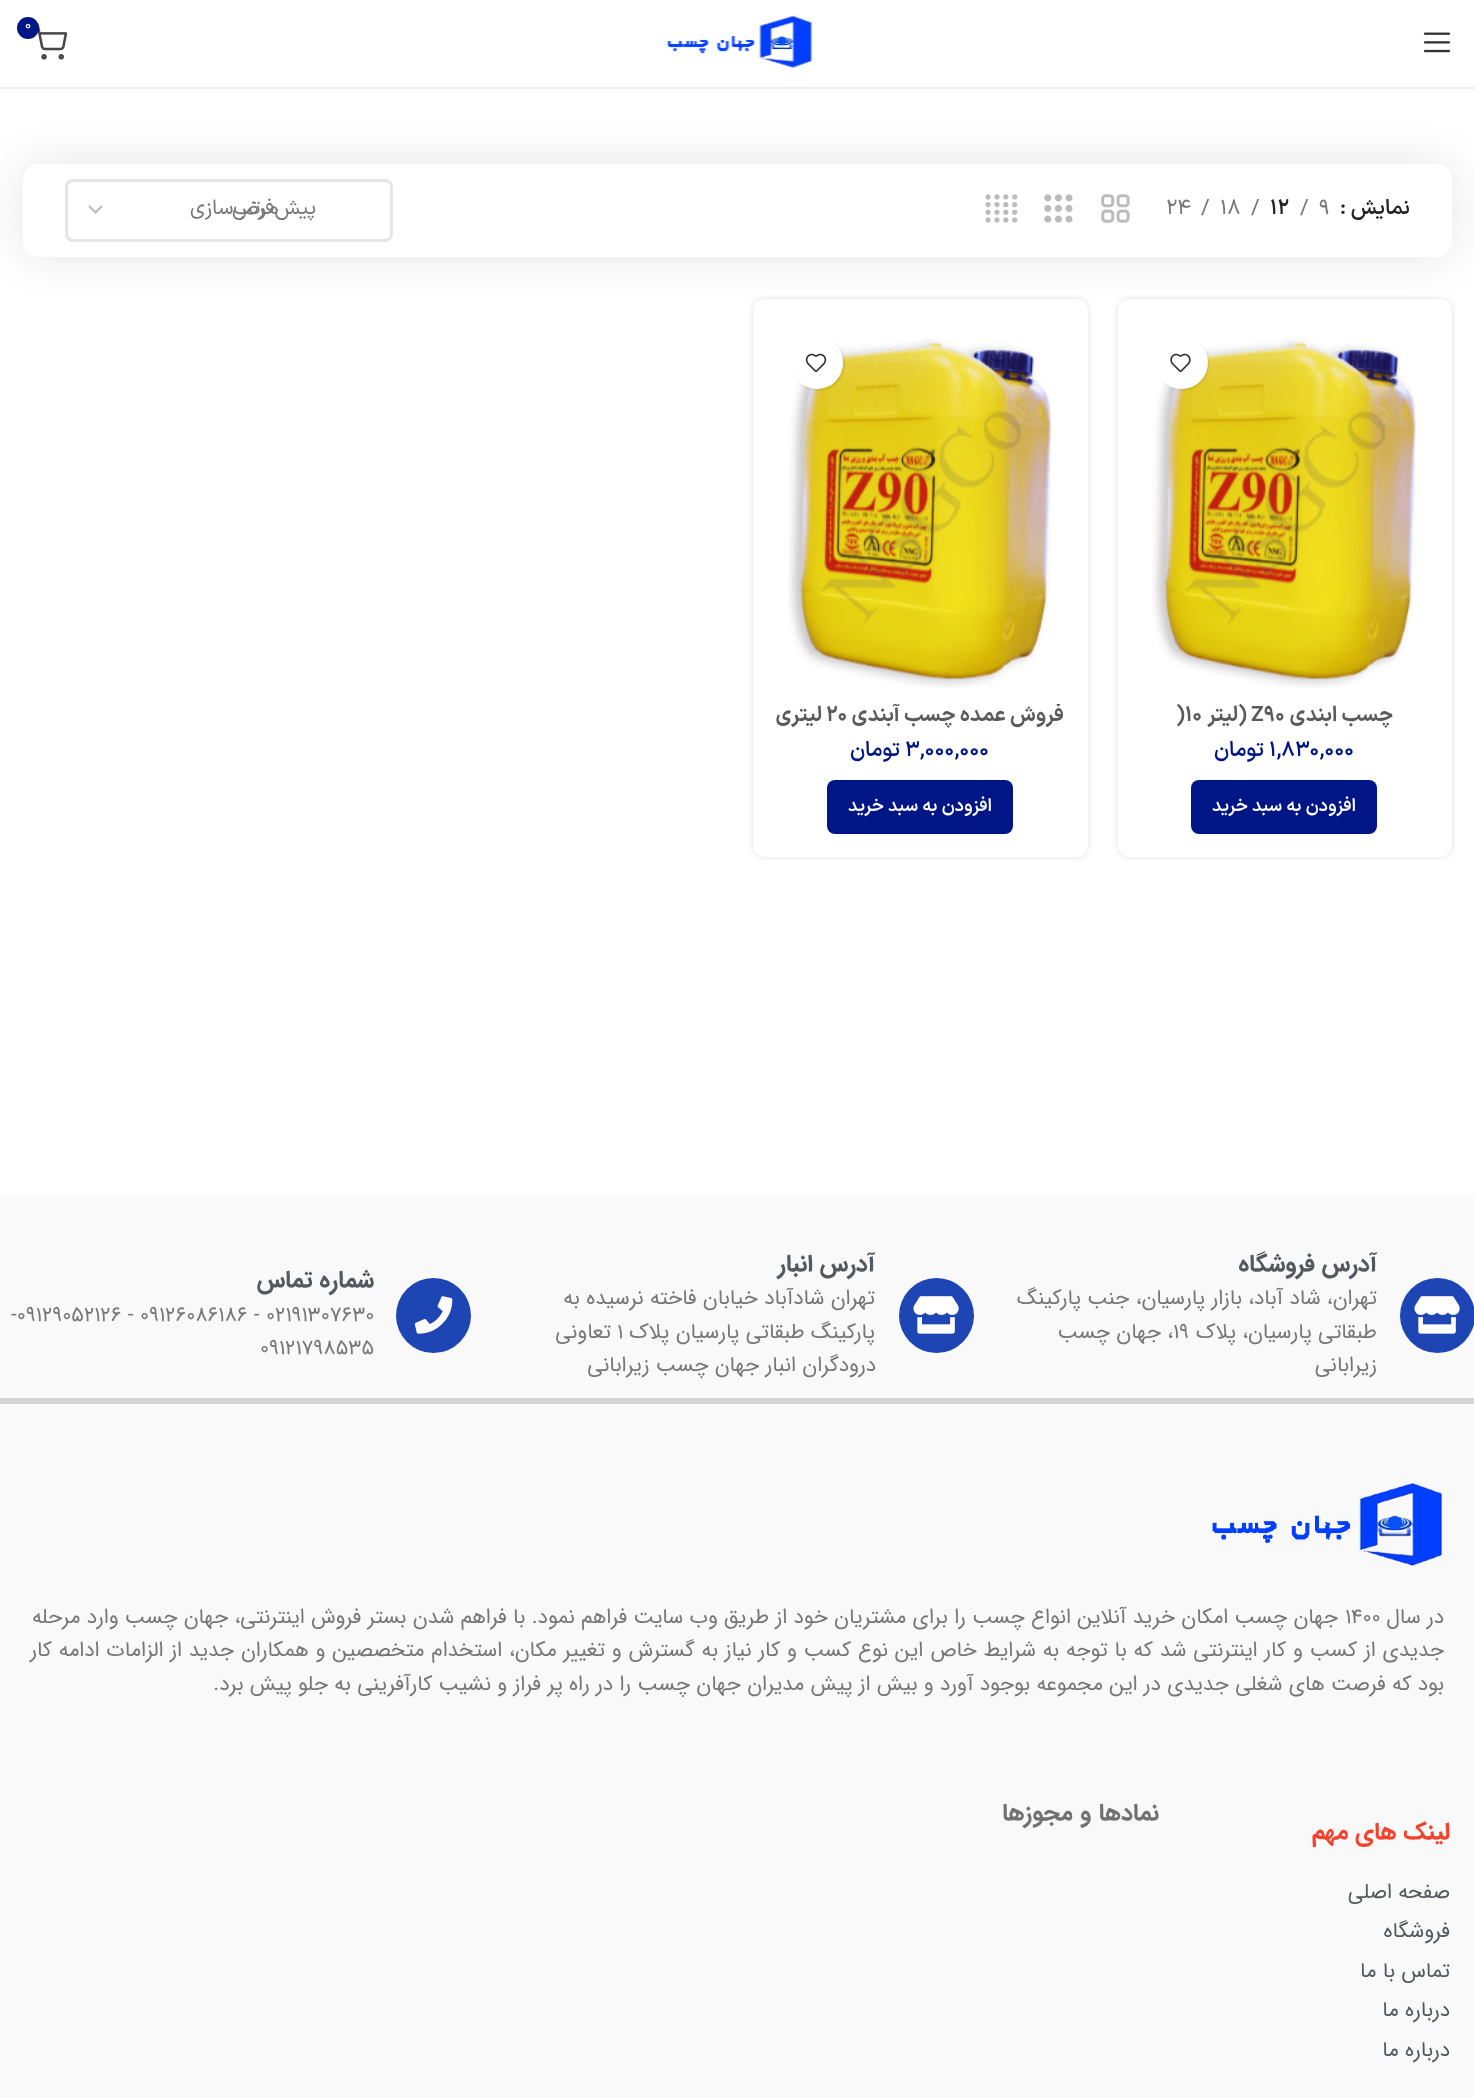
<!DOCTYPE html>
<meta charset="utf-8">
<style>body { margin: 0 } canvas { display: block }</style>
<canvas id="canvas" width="1474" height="2097"></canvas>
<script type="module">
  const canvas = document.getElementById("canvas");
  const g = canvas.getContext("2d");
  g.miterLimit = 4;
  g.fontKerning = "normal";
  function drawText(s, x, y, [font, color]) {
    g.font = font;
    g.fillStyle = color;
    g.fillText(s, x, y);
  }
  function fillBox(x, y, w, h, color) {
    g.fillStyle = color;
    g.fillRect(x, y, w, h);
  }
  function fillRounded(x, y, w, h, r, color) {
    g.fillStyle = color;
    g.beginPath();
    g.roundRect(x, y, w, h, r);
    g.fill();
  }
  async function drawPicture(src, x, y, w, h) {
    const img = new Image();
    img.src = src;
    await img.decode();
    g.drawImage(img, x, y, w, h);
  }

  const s1 = ["14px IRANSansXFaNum", "#FFFFFF"];
  const s2 = ["600 21px IRANSansXFaNum", "#242424"];
  const s3 = ["21px IRANSansXFaNum", "#777777"];
  const s4 = ["bold 21px IRANSansXFaNum", "#5B5B5B"];
  const s5 = ["600 21px IRANSansXFaNum", "#001687"];
  const s6 = ["600 18px IRANSansXFaNum", "#FFFFFF"];
  const s7 = ["bold 24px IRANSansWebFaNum", "#54595F"];
  const s8 = ["21px IRANSansWebFaNum", "#777777"];
  const s9 = ["bold 24px IRANSansWebFaNum", "#717171"];
  const s10 = ["bold 24px IRANSansWebFaNum", "#F6412D"];
  const s11 = ["21px IRANSansWebFaNum", "#54595F"];

  fillBox(0, 0, 1474, 2097, "#FFFFFF");
  fillBox(0, 87, 1474, 2, "#EFEFEF");
  await drawPicture("pic1.png", 667, 15, 146, 53);
  await drawPicture("pic2.png", 37, 24, 31, 36);
  g.fillStyle = "#001687";
  g.beginPath();
  g.arc(28, 28, 11, 0, Math.PI * 2);
  g.fill();
  drawText("0", 25, 29, s1);
  await drawPicture("pic3.png", 1423, 32, 28, 21);
  g.fillStyle = "rgba(0, 0, 0, 0.1)";
  g.filter = "blur(22.5px)";
  g.beginPath();
  g.roundRect(23, 164, 1429, 93, 15);
  g.fill();
  g.filter = "none";
  fillRounded(23, 164, 1429, 93, 15, "#FFFFFF");
  g.direction = "rtl";
  drawText("نمایش", 1410, 214, s2);
  g.direction = "ltr";
  drawText(":", 1340, 214, s2);
  drawText("9", 1319, 214, s3);
  drawText("/", 1300, 214, s3);
  drawText("12", 1270, 214, s2);
  drawText("/", 1251, 214, s3);
  drawText("18", 1220, 214, s3);
  drawText("/", 1201, 214, s3);
  drawText("24", 1166, 214, s3);
  await drawPicture("pic4.png", 1101, 194, 29, 29);
  await drawPicture("pic5.png", 1044, 194, 29, 29);
  await drawPicture("pic6.png", 985, 194, 33, 29);
  g.beginPath();
  g.moveTo(89, 206);
  g.lineTo(95.5, 212.5);
  g.lineTo(102, 206);
  g.strokeStyle = "#BBBBBB";
  g.lineWidth = 2.2;
  g.stroke();
  g.beginPath();
  g.roundRect(66.5, 180.5, 325, 60, 6.5);
  g.strokeStyle = "#E6E6E6";
  g.lineWidth = 3;
  g.stroke();
  g.direction = "rtl";
  drawText("مرتب‌سازی", 278, 214, s3);
  drawText("پیش‌فرض", 316, 214, s3);
  g.fillStyle = "rgba(0, 0, 0, 0.12)";
  g.filter = "blur(3px)";
  g.beginPath();
  g.roundRect(1118, 299, 334, 558, 12);
  g.fill();
  g.filter = "none";
  fillRounded(1118, 299, 334, 558, 12, "#FFFFFF");
  await drawPicture("pic8.png", 1152, 338, 264, 350);
  g.fillStyle = "rgba(0, 0, 0, 0.1)";
  g.filter = "blur(1px)";
  g.beginPath();
  g.roundRect(1157, 338, 52, 52, 26);
  g.fill();
  g.filter = "none";
  g.fillStyle = "#FFFFFF";
  g.beginPath();
  g.arc(1181.5, 362.5, 26.5, 0, Math.PI * 2);
  g.fill();
  await drawPicture("pic7.png", 1170, 353, 21, 19);
  drawText("چسب ابندی", 1393, 721, s4);
  g.direction = "ltr";
  drawText("Z90", 1251, 721, s4);
  g.direction = "rtl";
  drawText("(لیتر", 1247, 721, s4);
  g.direction = "ltr";
  drawText(")10", 1176, 721, s4);
  drawText("1,830,000", 1269, 756, s5);
  g.direction = "rtl";
  drawText("تومان", 1264, 756, s5);
  fillRounded(1191, 780, 186, 54, 8, "#001687");
  drawText("افزودن به سبد خرید", 1356, 811, s6);
  g.fillStyle = "rgba(0, 0, 0, 0.12)";
  g.filter = "blur(3px)";
  g.beginPath();
  g.roundRect(753, 299, 335, 558, 12);
  g.fill();
  g.filter = "none";
  fillRounded(753, 299, 335, 558, 12, "#FFFFFF");
  await drawPicture("pic10.png", 788, 338, 264, 350);
  g.fillStyle = "rgba(0, 0, 0, 0.1)";
  g.filter = "blur(1px)";
  g.beginPath();
  g.roundRect(792, 338, 53, 52, 26);
  g.fill();
  g.filter = "none";
  fillRounded(791, 336, 52, 53, 26, "#FFFFFF");
  await drawPicture("pic9.png", 805, 353, 22, 19);
  g.save();
  g.beginPath();
  g.rect(776, 704, 289, 27);
  g.clip();
  drawText("فروش عمده چسب آبندی", 1064, 721, s4);
  g.restore();
  g.direction = "ltr";
  drawText("20", 826, 721, s4);
  g.direction = "rtl";
  drawText("لیتری", 822, 721, s4);
  g.direction = "ltr";
  drawText("3,000,000", 905, 756, s5);
  g.direction = "rtl";
  drawText("تومان", 900, 756, s5);
  fillRounded(827, 780, 186, 54, 8, "#001687");
  drawText("افزودن به سبد خرید", 992, 811, s6);
  fillBox(0, 1197, 1474, 201, "#F9F9F9");
  fillBox(0, 1398, 1474, 6, "#D4D4D4");
  g.fillStyle = "#1E45B4";
  g.beginPath();
  g.arc(1437.5, 1315.5, 37.5, 0, Math.PI * 2);
  g.fill();
  await drawPicture("pic11.png", 1414, 1296, 46, 38);
  drawText("آدرس فروشگاه", 1377, 1271, s7);
  drawText("تهران، شاد آباد،", 1377, 1304, s8);
  drawText("بازار پارسیان، جنب پارکینگ", 1242, 1304, s8);
  drawText("طبقاتی پارسیان، پلاک", 1377, 1338, s8);
  g.direction = "ltr";
  drawText("۱۹", 1173, 1338, s8);
  g.direction = "rtl";
  drawText("، جهان چسب", 1173, 1338, s8);
  drawText("زیرابانی", 1377, 1371, s8);
  g.fillStyle = "#1E45B4";
  g.beginPath();
  g.arc(936.5, 1315.5, 37.5, 0, Math.PI * 2);
  g.fill();
  await drawPicture("pic11.png", 913, 1296, 46, 38);
  drawText("آدرس انبار", 875, 1271, s7);
  drawText("تهران شادآباد خیابان فاخته نرسیده به", 875, 1304, s8);
  drawText("پارکینگ طبقاتی پارسیان پلاک", 875, 1338, s8);
  g.direction = "ltr";
  drawText("۱", 617, 1338, s8);
  g.direction = "rtl";
  drawText("تعاونی", 611, 1338, s8);
  drawText("درودگران انبار جهان چسب زیرابانی", 876, 1371, s8);
  g.fillStyle = "#1E45B4";
  g.beginPath();
  g.arc(433.5, 1315.5, 37.5, 0, Math.PI * 2);
  g.fill();
  await drawPicture("pic12.png", 414, 1296, 39, 38);
  drawText("شماره تماس", 374, 1287, s7);
  g.direction = "ltr";
  drawText("-۰۹۱۲۹۰۵۲۱۲۶ - ۰۹۱۲۶۰۸۶۱۸۶ - 02191307630", 11, 1321, s8);
  drawText("09121798535", 260, 1354, s8);
  fillBox(0, 1404, 1474, 693, "#F9F9F9");
  await drawPicture("pic13.png", 1212, 1483, 231, 83);
  g.direction = "rtl";
  drawText("در سال", 1444, 1623, s8);
  g.direction = "ltr";
  drawText("1400", 1345, 1623, s8);
  g.direction = "rtl";
  drawText("جهان چسب امکان خرید آنلاین انواع چسب را برای مشتریان خود از طریق وب سایت فراهم نمود. با فراهم شدن بستر فروش اینترنتی، جهان چسب وارد مرحله", 1338, 1623, s8);
  g.wordSpacing = "0.5px";
  drawText("جدیدی از کسب و کار اینترنتی شد که با توجه به شرایط خاص این نوع کسب و کار نیاز به گسترش و تغییر مکان، استخدام متخصصین و همکاران جدید از الزامات ادامه کار", 1444, 1656, s8);
  g.wordSpacing = "0px";
  drawText("بود که فرصت های شغلی جدیدی در این مجموعه بوجود آورد و بیش از پیش مدیران جهان چسب را در راه پر فراز و نشیب کارآفرینی به جلو پیش برد.", 1444, 1690, s8);
  drawText("نمادها و مجوزها", 1159, 1820, s9);
  drawText("لینک های مهم", 1450, 1839, s10);
  drawText("صفحه اصلی", 1450, 1898, s11);
  drawText("فروشگاه", 1450, 1937, s11);
  drawText("تماس با ما", 1450, 1977, s11);
  drawText("درباره ما", 1450, 2016, s11);
  drawText("درباره ما", 1450, 2056, s11);
</script>
